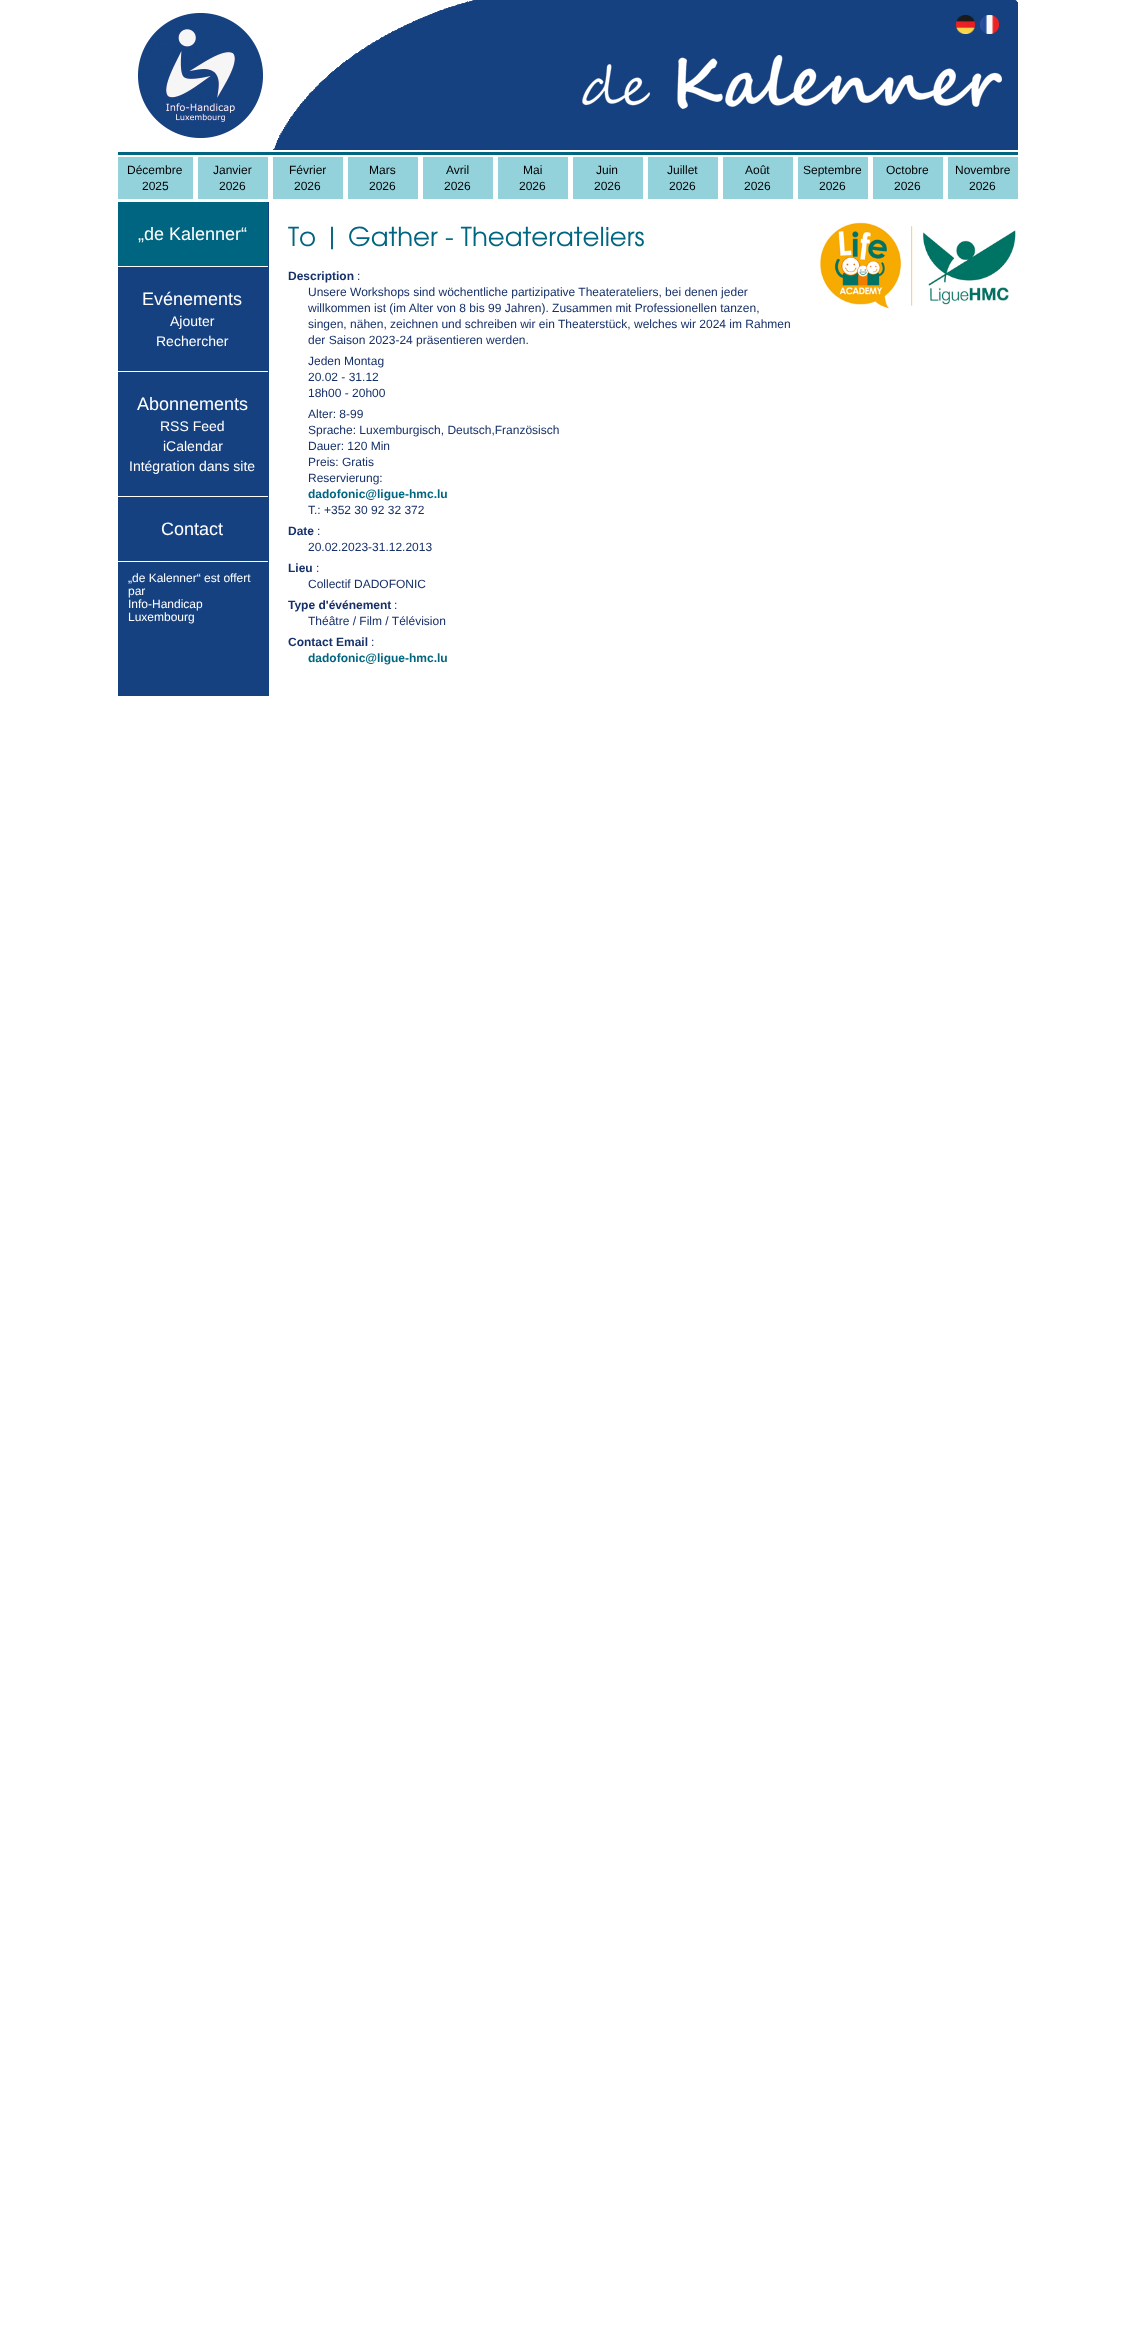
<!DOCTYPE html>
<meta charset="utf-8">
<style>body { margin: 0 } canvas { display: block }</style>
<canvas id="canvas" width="1135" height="2346"></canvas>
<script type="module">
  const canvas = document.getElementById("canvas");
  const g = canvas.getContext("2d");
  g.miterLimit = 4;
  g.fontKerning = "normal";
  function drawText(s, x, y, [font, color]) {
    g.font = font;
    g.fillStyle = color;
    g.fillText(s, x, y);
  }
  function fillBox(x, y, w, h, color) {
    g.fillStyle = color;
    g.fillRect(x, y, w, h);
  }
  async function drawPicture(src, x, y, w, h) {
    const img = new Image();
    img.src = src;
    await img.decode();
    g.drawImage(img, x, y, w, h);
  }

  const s1 = ["12px Liberation Sans", "#000000"];
  const s2 = ["18px Liberation Sans", "#FFFFFF"];
  const s3 = ["14px Liberation Sans", "#FFFFFF"];
  const s4 = ["12px Liberation Sans", "#FFFFFF"];
  const s5 = ["26px TeX Gyre Adventor", "#006580"];
  const s6 = ["bold 12px Liberation Sans", "#163069"];
  const s7 = ["12px Liberation Sans", "#163069"];
  const s8 = ["bold 12px Liberation Sans", "#006580"];

  fillBox(0, 0, 1135, 2346, "#FFFFFF");
  await drawPicture("pic1.png", 273, 0, 745, 150);
  await drawPicture("pic2.png", 138, 13, 125, 125);
  await drawPicture("pic3.png", 956, 15, 19, 19);
  await drawPicture("pic4.png", 980, 15, 19, 19);
  await drawPicture("pic5.png", 582, 55, 420, 54);
  fillBox(118, 152, 900, 3, "#006580");
  fillBox(118, 157, 75, 42, "#93D2DB");
  drawText("Décembre", 127, 174, s1);
  drawText("2025", 142, 190, s1);
  fillBox(198, 157, 70, 42, "#93D2DB");
  drawText("Janvier", 213, 174, s1);
  drawText("2026", 219, 190, s1);
  fillBox(273, 157, 70, 42, "#93D2DB");
  drawText("Février", 289, 174, s1);
  drawText("2026", 294, 190, s1);
  fillBox(348, 157, 70, 42, "#93D2DB");
  drawText("Mars", 369, 174, s1);
  drawText("2026", 369, 190, s1);
  fillBox(423, 157, 70, 42, "#93D2DB");
  drawText("Avril", 446, 174, s1);
  drawText("2026", 444, 190, s1);
  fillBox(498, 157, 70, 42, "#93D2DB");
  drawText("Mai", 523, 174, s1);
  drawText("2026", 519, 190, s1);
  fillBox(573, 157, 70, 42, "#93D2DB");
  drawText("Juin", 596, 174, s1);
  drawText("2026", 594, 190, s1);
  fillBox(648, 157, 70, 42, "#93D2DB");
  drawText("Juillet", 667, 174, s1);
  drawText("2026", 669, 190, s1);
  fillBox(723, 157, 70, 42, "#93D2DB");
  drawText("Août", 745, 174, s1);
  drawText("2026", 744, 190, s1);
  fillBox(798, 157, 70, 42, "#93D2DB");
  drawText("Septembre", 803, 174, s1);
  drawText("2026", 819, 190, s1);
  fillBox(873, 157, 70, 42, "#93D2DB");
  drawText("Octobre", 886, 174, s1);
  drawText("2026", 894, 190, s1);
  fillBox(948, 157, 70, 42, "#93D2DB");
  drawText("Novembre", 955, 174, s1);
  drawText("2026", 969, 190, s1);
  fillBox(118, 202, 151, 494, "#154180");
  fillBox(118, 202, 150, 64, "#006580");
  fillBox(118, 266, 150, 1, "#FFFFFF");
  drawText("„de Kalenner“", 138, 240, s2);
  fillBox(118, 371, 150, 1, "#FFFFFF");
  drawText("Evénements", 142, 305, s2);
  drawText("Ajouter", 170, 326, s3);
  drawText("Rechercher", 156, 346, s3);
  fillBox(118, 496, 150, 1, "#FFFFFF");
  drawText("Abonnements", 137, 410, s2);
  drawText("RSS Feed", 160, 431, s3);
  drawText("iCalendar", 163, 451, s3);
  drawText("Intégration dans site", 129, 471, s3);
  fillBox(118, 561, 150, 1, "#FFFFFF");
  drawText("Contact", 161, 535, s2);
  drawText("„de Kalenner“ est offert", 128, 582, s4);
  drawText("par", 128, 595, s4);
  drawText("Info-Handicap", 128, 608, s4);
  drawText("Luxembourg", 128, 621, s4);
  drawText("To | Gather - Theaterateliers", 288, 246, s5);
  await drawPicture("pic6.png", 820, 222, 196, 87);
  drawText("Description", 288, 280, s6);
  drawText(":", 357, 280, s7);
  drawText("Unsere Workshops sind wöchentliche partizipative Theaterateliers, bei denen jeder", 308, 296, s7);
  drawText("willkommen ist (im Alter von 8 bis 99 Jahren). Zusammen mit Professionellen tanzen,", 308, 312, s7);
  drawText("singen, nähen, zeichnen und schreiben wir ein Theaterstück, welches wir 2024 im Rahmen", 308, 328, s7);
  drawText("der Saison 2023-24 präsentieren werden.", 308, 344, s7);
  drawText("Jeden Montag", 308, 365, s7);
  drawText("20.02 - 31.12", 308, 381, s7);
  drawText("18h00 - 20h00", 308, 397, s7);
  drawText("Alter: 8-99", 308, 418, s7);
  drawText("Sprache: Luxemburgisch, Deutsch,Französisch", 308, 434, s7);
  drawText("Dauer: 120 Min", 308, 450, s7);
  drawText("Preis: Gratis", 308, 466, s7);
  drawText("Reservierung:", 308, 482, s7);
  drawText("dadofonic@ligue-hmc.lu", 308, 498, s8);
  drawText("T.: +352 30 92 32 372", 308, 514, s7);
  drawText("Date", 288, 535, s6);
  drawText(":", 317, 535, s7);
  drawText("20.02.2023-31.12.2013", 308, 551, s7);
  drawText("Lieu", 288, 572, s6);
  drawText(":", 316, 572, s7);
  drawText("Collectif DADOFONIC", 308, 588, s7);
  drawText("Type d'événement", 288, 609, s6);
  drawText(":", 394, 609, s7);
  drawText("Théâtre / Film / Télévision", 308, 625, s7);
  drawText("Contact Email", 288, 646, s6);
  drawText(":", 371, 646, s7);
  drawText("dadofonic@ligue-hmc.lu", 308, 662, s8);
</script>
